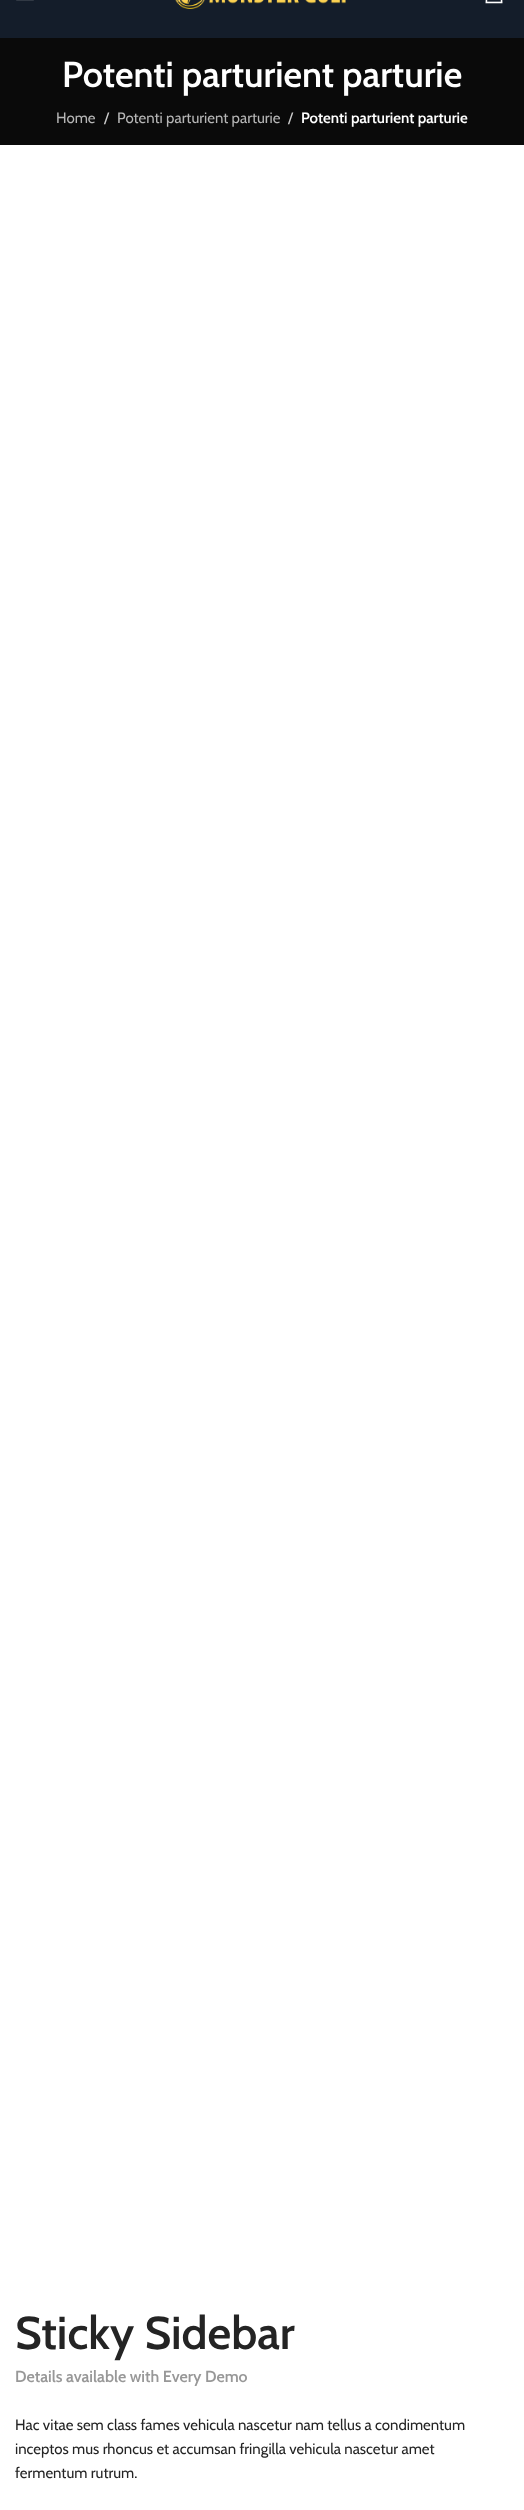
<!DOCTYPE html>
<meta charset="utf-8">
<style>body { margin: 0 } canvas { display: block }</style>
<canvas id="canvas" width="524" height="2510"></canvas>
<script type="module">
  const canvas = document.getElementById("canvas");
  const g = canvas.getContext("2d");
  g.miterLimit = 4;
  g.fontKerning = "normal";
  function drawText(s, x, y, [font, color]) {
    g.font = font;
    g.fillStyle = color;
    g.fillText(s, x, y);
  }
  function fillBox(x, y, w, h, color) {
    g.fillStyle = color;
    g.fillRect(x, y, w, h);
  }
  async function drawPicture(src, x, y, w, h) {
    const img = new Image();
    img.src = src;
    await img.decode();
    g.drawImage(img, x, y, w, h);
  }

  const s1 = ["600 36px Cabin", "#FFFFFF"];
  const s2 = ["15px Cabin", "#B6B6B6"];
  const s3 = ["15px Cabin", "#CECECE"];
  const s4 = ["600 15px Cabin", "#FFFFFF"];
  const s5 = ["600 46px Cabin", "#242424"];
  const s6 = ["600 16px Cabin", "#989898"];
  const s7 = ["15px Cabin", "#242424"];

  fillBox(0, 0, 524, 2510, "#FFFFFF");
  fillBox(0, 0, 524, 38, "#141D2A");
  await drawPicture("pic1.png", 16, 0, 18, 1);
  await drawPicture("pic2.png", 175, 0, 171, 9);
  await drawPicture("pic3.png", 485, 0, 18, 4);
  fillBox(0, 38, 524, 107, "#0A0A0A");
  drawText("Potenti parturient parturie", 62, 87, s1);
  drawText("Home", 56, 123, s2);
  drawText("/", 104, 123, s3);
  drawText("Potenti parturient parturie", 117, 123, s2);
  drawText("/", 288, 123, s3);
  drawText("Potenti parturient parturie", 301, 123, s4);
  drawText("Sticky Sidebar", 15, 2349, s5);
  drawText("Details available with Every Demo", 15, 2382, s6);
  drawText("Hac vitae sem class fames vehicula nascetur nam tellus a condimentum", 15, 2430, s7);
  drawText("inceptos mus rhoncus et accumsan fringilla vehicula nascetur amet", 15, 2454, s7);
  drawText("fermentum rutrum.", 15, 2478, s7);
</script>
